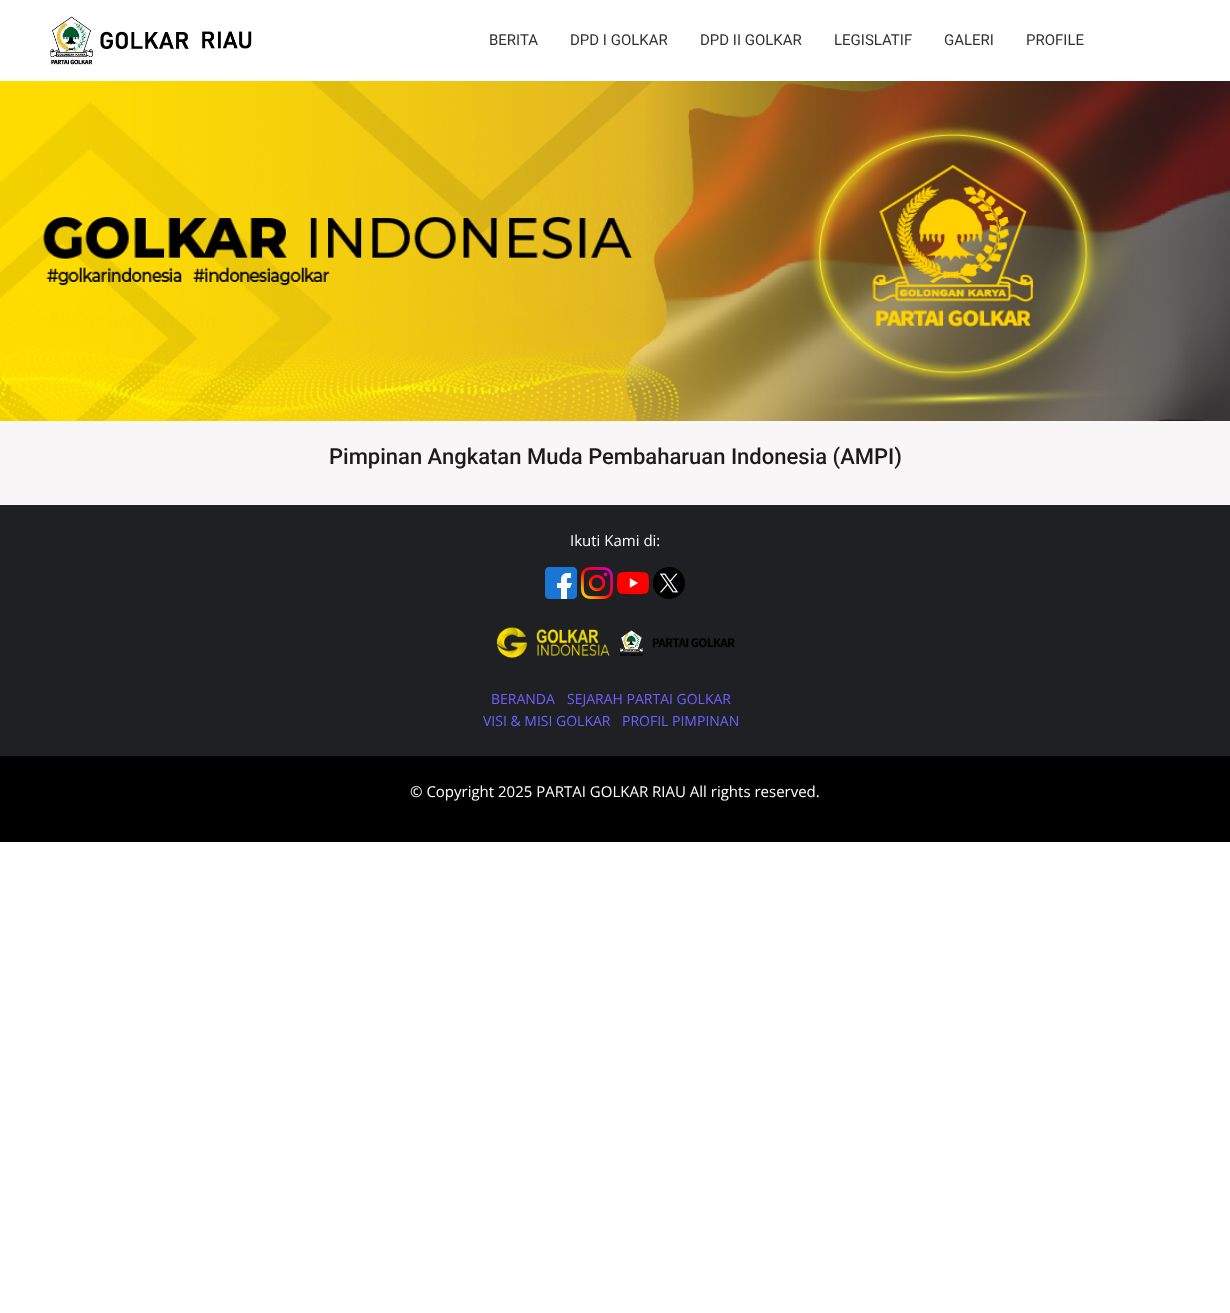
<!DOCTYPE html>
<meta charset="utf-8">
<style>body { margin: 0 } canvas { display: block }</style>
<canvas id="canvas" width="1230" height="1313"></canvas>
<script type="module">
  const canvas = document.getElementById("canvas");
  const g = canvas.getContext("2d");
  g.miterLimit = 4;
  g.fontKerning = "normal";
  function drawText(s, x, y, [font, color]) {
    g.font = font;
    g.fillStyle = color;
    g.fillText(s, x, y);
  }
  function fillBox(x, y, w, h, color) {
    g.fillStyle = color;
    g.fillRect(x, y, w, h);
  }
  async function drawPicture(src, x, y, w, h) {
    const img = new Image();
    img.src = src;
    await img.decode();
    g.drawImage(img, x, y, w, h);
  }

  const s1 = ["15px Roboto", "#323232"];
  const s2 = ["500 22px Roboto", "#1B1B1B"];
  const s3 = ["15px Open Sans", "#FFFFFF"];
  const s4 = ["14px Open Sans", "#6C63FF"];

  fillBox(0, 0, 1230, 1313, "#FFFFFF");
  await drawPicture("pic1.png", 50, 16, 202, 49);
  drawText("BERITA", 489, 45, s1);
  drawText("DPD I GOLKAR", 570, 45, s1);
  drawText("DPD II GOLKAR", 700, 45, s1);
  drawText("LEGISLATIF", 834, 45, s1);
  drawText("GALERI", 944, 45, s1);
  drawText("PROFILE", 1026, 45, s1);
  fillBox(0, 421, 1230, 84, "#F8F6F7");
  await drawPicture("pic2.png", 0, 81, 1230, 340);
  drawText("Pimpinan Angkatan Muda Pembaharuan Indonesia (AMPI)", 329, 464, s2);
  fillBox(0, 505, 1230, 251, "#1F2024");
  drawText("Ikuti Kami di:", 570, 546, s3);
  await drawPicture("pic3.png", 545, 567, 32, 32);
  await drawPicture("pic4.png", 581, 567, 32, 32);
  await drawPicture("pic5.png", 617, 571, 32, 24);
  await drawPicture("pic6.png", 653, 567, 32, 32);
  await drawPicture("pic7.png", 496, 627, 114, 31);
  await drawPicture("pic8.png", 620, 630, 115, 26);
  drawText("BERANDA", 491, 704, s4);
  drawText("SEJARAH PARTAI GOLKAR", 567, 704, s4);
  drawText("VISI & MISI GOLKAR", 483, 726, s4);
  drawText("PROFIL PIMPINAN", 622, 726, s4);
  fillBox(0, 756, 1230, 86, "#000000");
  drawText("© Copyright 2025 PARTAI GOLKAR RIAU All rights reserved.", 410, 797, s3);
</script>
